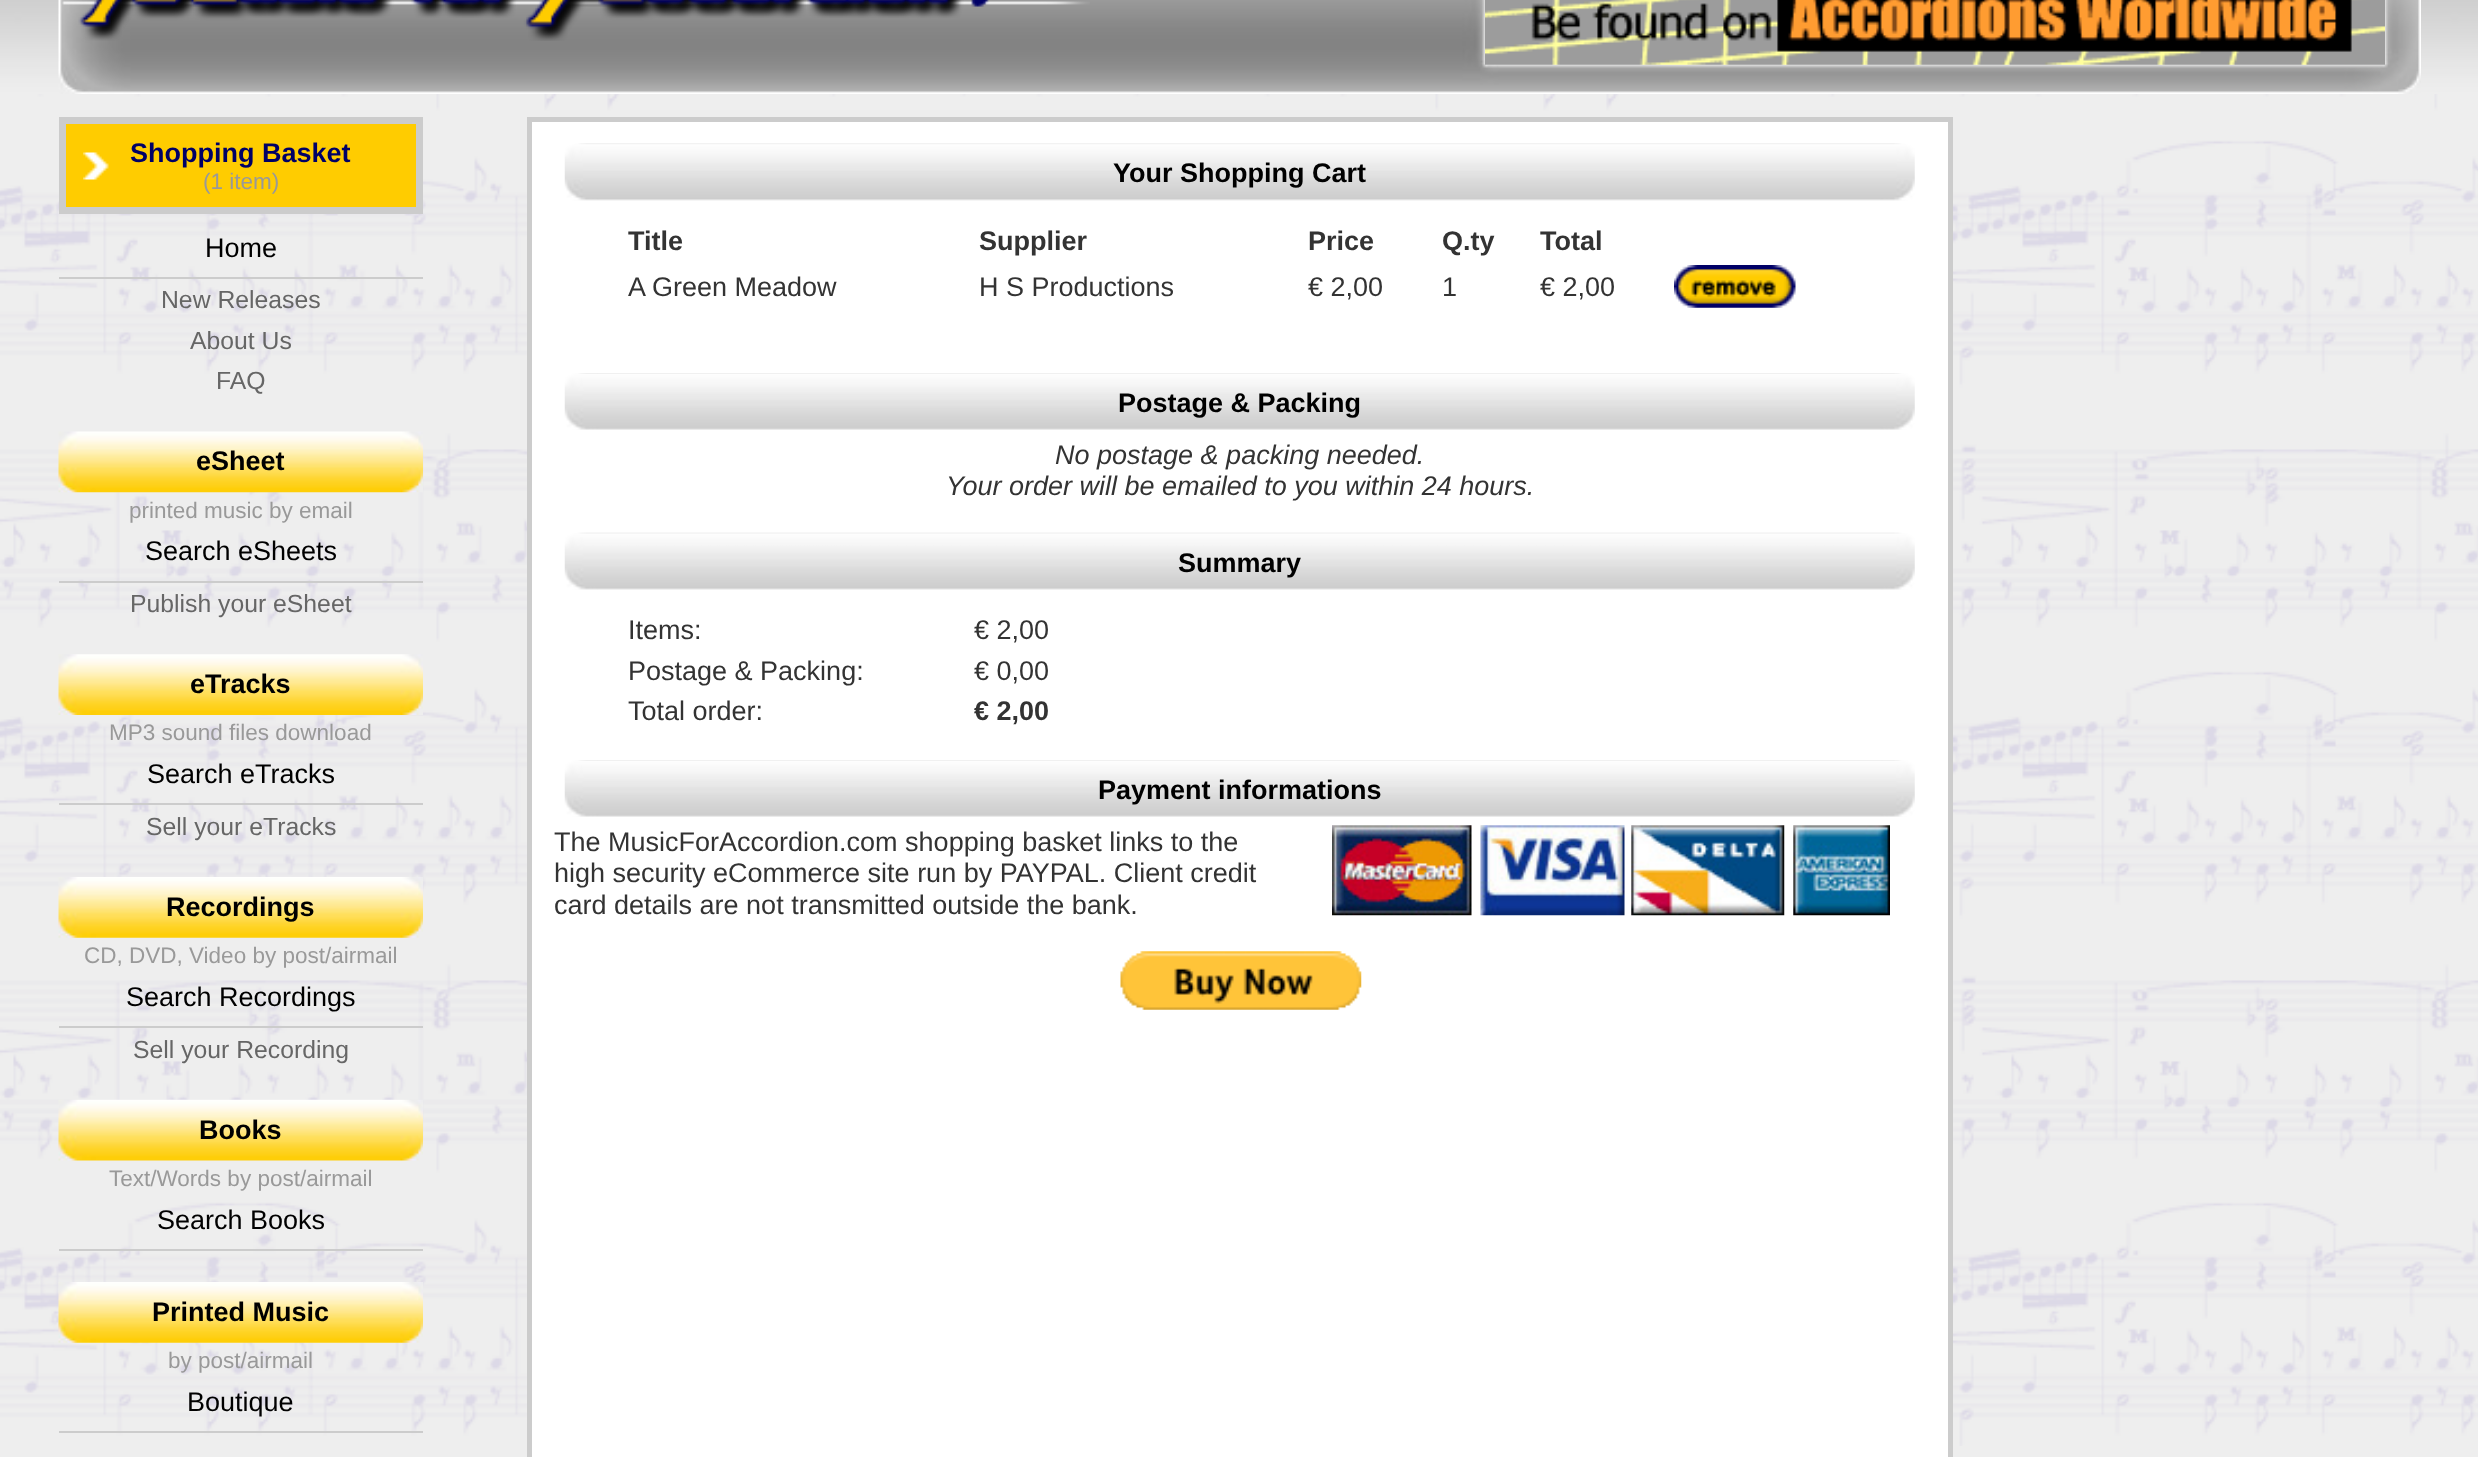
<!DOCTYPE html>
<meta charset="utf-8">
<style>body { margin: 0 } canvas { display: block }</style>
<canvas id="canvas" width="2478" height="1457"></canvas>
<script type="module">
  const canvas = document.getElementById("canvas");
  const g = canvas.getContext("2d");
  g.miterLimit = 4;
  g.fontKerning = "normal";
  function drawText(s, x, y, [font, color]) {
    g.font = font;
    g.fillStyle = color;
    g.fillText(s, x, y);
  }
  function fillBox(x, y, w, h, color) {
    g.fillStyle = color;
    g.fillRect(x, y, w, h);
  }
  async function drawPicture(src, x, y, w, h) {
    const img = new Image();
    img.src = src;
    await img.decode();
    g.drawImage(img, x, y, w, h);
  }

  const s1 = ["bold 27px Liberation Sans", "#000066"];
  const s2 = ["22.5px Liberation Sans", "#999999"];
  const s3 = ["27px Liberation Sans", "#000000"];
  const s4 = ["24.75px Liberation Sans", "#666666"];
  const s5 = ["bold 27px Liberation Sans", "#000000"];
  const s6 = ["bold 27px Liberation Sans", "#333333"];
  const s7 = ["27px Liberation Sans", "#333333"];
  const s8 = ["italic 27px Liberation Sans", "#333333"];

  fillBox(0, 0, 2478, 1457, "#EEEEEE");
  await drawPicture("pic1.png", 0, 94, 2478, 1352);
  await drawPicture("pic2.png", 0, 0, 2478, 94);
  await drawPicture("pic3.png", 58, 0, 2363, 94);
  await drawPicture("pic4.png", 62, 0, 1028, 41);
  await drawPicture("pic5.png", 1485, 0, 900, 65);
  fillBox(66, 124, 350, 83, "#FFCC00");
  await drawPicture("pic6.png", 83, 152, 26, 28);
  g.strokeStyle = "#CCCCCC";
  g.lineWidth = 7;
  g.strokeRect(62.5, 120.5, 357, 90);
  drawText("Shopping Basket", 130, 162, s1);
  drawText("(1 item)", 203, 189, s2);
  fillBox(59, 277, 364, 2, "#CCCCCC");
  drawText("Home", 205, 257, s3);
  drawText("New Releases", 161, 308, s4);
  drawText("About Us", 190, 349, s4);
  drawText("FAQ", 216, 389, s4);
  await drawPicture("pic7.png", 58, 431, 365, 62);
  drawText("eSheet", 196, 470, s5);
  drawText("printed music by email", 129, 518, s2);
  fillBox(59, 581, 364, 2, "#CCCCCC");
  drawText("Search eSheets", 145, 560, s3);
  drawText("Publish your eSheet", 130, 612, s4);
  await drawPicture("pic8.png", 58, 654, 365, 61);
  drawText("eTracks", 190, 693, s5);
  drawText("MP3 sound files download", 109, 740, s2);
  fillBox(59, 803, 364, 2, "#CCCCCC");
  drawText("Search eTracks", 147, 783, s3);
  drawText("Sell your eTracks", 146, 835, s4);
  await drawPicture("pic9.png", 58, 877, 365, 61);
  drawText("Recordings", 166, 916, s5);
  drawText("CD, DVD, Video by post/airmail", 84, 963, s2);
  fillBox(59, 1026, 364, 2, "#CCCCCC");
  drawText("Search Recordings", 126, 1006, s3);
  drawText("Sell your Recording", 133, 1058, s4);
  await drawPicture("pic10.png", 58, 1099, 365, 62);
  drawText("Books", 199, 1139, s5);
  drawText("Text/Words by post/airmail", 109, 1186, s2);
  fillBox(59, 1249, 364, 2, "#CCCCCC");
  drawText("Search Books", 157, 1229, s3);
  await drawPicture("pic11.png", 58, 1282, 365, 61);
  drawText("Printed Music", 152, 1321, s5);
  drawText("by post/airmail", 168, 1368, s2);
  fillBox(59, 1431, 364, 2, "#CCCCCC");
  drawText("Boutique", 187, 1411, s3);
  g.fillStyle = "#FFFFFF";
  g.beginPath();
  g.rect(529.5, 119.5, 1421, 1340);
  g.fill();
  g.lineWidth = 5;
  g.stroke();
  await drawPicture("pic12.png", 564, 143, 1351, 58);
  drawText("Your Shopping Cart", 1113, 182, s5);
  drawText("Title", 628, 250, s6);
  drawText("Supplier", 979, 250, s6);
  drawText("Price", 1308, 250, s6);
  drawText("Q.ty", 1442, 250, s6);
  drawText("Total", 1540, 250, s6);
  drawText("A Green Meadow", 628, 296, s7);
  drawText("H S Productions", 979, 296, s7);
  drawText("€ 2,00", 1308, 296, s7);
  drawText("1", 1442, 296, s7);
  drawText("€ 2,00", 1540, 296, s7);
  await drawPicture("pic13.png", 1674, 265, 122, 43);
  await drawPicture("pic14.png", 564, 373, 1351, 57);
  drawText("Postage & Packing", 1118, 412, s5);
  drawText("No postage & packing needed.", 1055, 464, s8);
  drawText("Your order will be emailed to you within 24 hours.", 946, 495, s8);
  await drawPicture("pic15.png", 564, 532, 1351, 58);
  drawText("Summary", 1178, 572, s5);
  drawText("Items:", 628, 639, s7);
  drawText("€ 2,00", 974, 639, s7);
  drawText("Postage & Packing:", 628, 680, s7);
  drawText("€ 0,00", 974, 680, s7);
  drawText("Total order:", 628, 720, s7);
  drawText("€ 2,00", 974, 720, s6);
  await drawPicture("pic16.png", 564, 760, 1351, 57);
  drawText("Payment informations", 1098, 799, s5);
  drawText("The MusicForAccordion.com shopping basket links to the", 554, 851, s7);
  await drawPicture("pic17.png", 1332, 825, 140, 91);
  await drawPicture("pic18.png", 1480, 825, 145, 91);
  await drawPicture("pic19.png", 1631, 825, 154, 91);
  await drawPicture("pic20.png", 1793, 825, 97, 91);
  drawText("high security eCommerce site run by PAYPAL. Client credit", 554, 882, s7);
  drawText("card details are not transmitted outside the bank.", 554, 914, s7);
  await drawPicture("pic21.png", 1120, 951, 242, 59);
</script>
